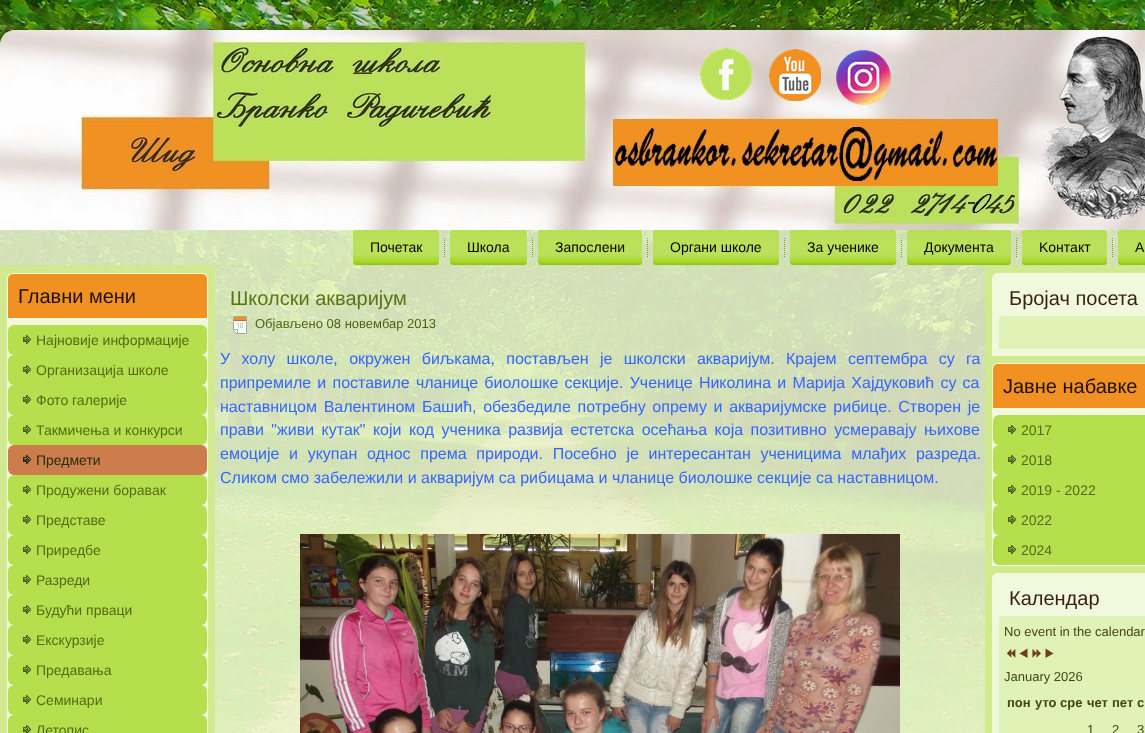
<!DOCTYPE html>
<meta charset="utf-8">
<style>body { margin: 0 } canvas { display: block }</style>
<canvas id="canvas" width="1145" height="733"></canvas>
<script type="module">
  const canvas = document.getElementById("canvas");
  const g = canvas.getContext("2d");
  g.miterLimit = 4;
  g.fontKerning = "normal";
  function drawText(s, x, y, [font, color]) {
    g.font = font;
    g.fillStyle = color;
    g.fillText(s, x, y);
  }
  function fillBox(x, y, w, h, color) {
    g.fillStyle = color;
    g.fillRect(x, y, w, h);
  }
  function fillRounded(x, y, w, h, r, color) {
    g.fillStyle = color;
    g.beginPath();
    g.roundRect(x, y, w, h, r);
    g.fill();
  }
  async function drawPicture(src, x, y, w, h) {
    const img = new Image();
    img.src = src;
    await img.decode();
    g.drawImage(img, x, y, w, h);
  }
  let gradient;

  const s1 = ["14px Liberation Sans", "#000000"];
  const s2 = ["20px Liberation Sans", "#1C1008"];
  const s3 = ["14px Liberation Sans", "#536C14"];
  const s4 = ["14px Liberation Sans", "#242F09"];
  const s5 = ["20px Liberation Sans", "#597415"];
  const s6 = ["13px Liberation Sans", "#4C6312"];
  const s7 = ["16px Liberation Sans", "#3366FF"];
  const s8 = ["20px Liberation Sans", "#381F10"];
  const s9 = ["13px Liberation Sans", "#434516"];
  const s10 = ["bold 13px Liberation Sans", "#434516"];

  fillBox(0, 0, 1145, 733, "#FFFFFF");
  await drawPicture("pic1.png", 0, 0, 1145, 733);
  g.save();
  g.beginPath();
  g.rect(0, 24, 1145, 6);
  g.clip();
  g.fillStyle = "rgba(0, 0, 0, 0.24)";
  g.filter = "blur(2.5px)";
  g.beginPath();
  g.roundRect(-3, 27, 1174, 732, 18);
  g.fill();
  g.filter = "none";
  g.restore();
  await drawPicture("pic2.png", 0, 30, 1145, 200);
  await drawPicture("pic3.png", 700, 48, 52, 52);
  await drawPicture("pic4.png", 769, 49, 52, 52);
  await drawPicture("pic5.png", 836, 50, 55, 55);
  g.beginPath();
  g.moveTo(0, 265.5);
  g.lineTo(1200, 265.5);
  g.strokeStyle = "#C8E679";
  g.setLineDash([1, 1]);
  g.stroke();
  gradient = g.createLinearGradient(396, 230, 396, 265);
  gradient.addColorStop(0, "#B7DF53");
  gradient.addColorStop(0.4, "#BBE15B");
  gradient.addColorStop(0.7, "#BBE15B");
  gradient.addColorStop(0.9, "#A6D728");
  gradient.addColorStop(1, "#92BE23");
  g.fillStyle = gradient;
  g.beginPath();
  g.roundRect(353, 230, 86, 35, 3);
  g.fill();
  drawText("Почетак", 370, 252, s1);
  await drawPicture("pic6.png", 444, 238, 1, 19);
  gradient = g.createLinearGradient(489, 230, 489, 265);
  gradient.addColorStop(0, "#B7DF53");
  gradient.addColorStop(0.4, "#BBE15B");
  gradient.addColorStop(0.7, "#BBE15B");
  gradient.addColorStop(0.9, "#A6D728");
  gradient.addColorStop(1, "#92BE23");
  g.fillStyle = gradient;
  g.beginPath();
  g.roundRect(450, 230, 77, 35, 3);
  g.fill();
  drawText("Школа", 467, 252, s1);
  await drawPicture("pic7.png", 532, 238, 1, 19);
  gradient = g.createLinearGradient(590, 230, 590, 265);
  gradient.addColorStop(0, "#B7DF53");
  gradient.addColorStop(0.4, "#BBE15B");
  gradient.addColorStop(0.7, "#BBE15B");
  gradient.addColorStop(0.9, "#A6D728");
  gradient.addColorStop(1, "#92BE23");
  g.fillStyle = gradient;
  g.beginPath();
  g.roundRect(538, 230, 104, 35, 3);
  g.fill();
  drawText("Запослени", 555, 252, s1);
  await drawPicture("pic8.png", 647, 238, 1, 19);
  gradient = g.createLinearGradient(716, 230, 716, 265);
  gradient.addColorStop(0, "#B7DF53");
  gradient.addColorStop(0.4, "#BBE15B");
  gradient.addColorStop(0.7, "#BBE15B");
  gradient.addColorStop(0.9, "#A6D728");
  gradient.addColorStop(1, "#92BE23");
  g.fillStyle = gradient;
  g.beginPath();
  g.roundRect(653, 230, 126, 35, 3);
  g.fill();
  drawText("Органи школе", 670, 252, s1);
  await drawPicture("pic9.png", 784, 238, 1, 19);
  gradient = g.createLinearGradient(843, 230, 843, 265);
  gradient.addColorStop(0, "#B7DF53");
  gradient.addColorStop(0.4, "#BBE15B");
  gradient.addColorStop(0.7, "#BBE15B");
  gradient.addColorStop(0.9, "#A6D728");
  gradient.addColorStop(1, "#92BE23");
  g.fillStyle = gradient;
  g.beginPath();
  g.roundRect(790, 230, 106, 35, 3);
  g.fill();
  drawText("За ученике", 807, 252, s1);
  await drawPicture("pic10.png", 901, 238, 1, 19);
  gradient = g.createLinearGradient(959, 230, 959, 265);
  gradient.addColorStop(0, "#B7DF53");
  gradient.addColorStop(0.4, "#BBE15B");
  gradient.addColorStop(0.7, "#BBE15B");
  gradient.addColorStop(0.9, "#A6D728");
  gradient.addColorStop(1, "#92BE23");
  g.fillStyle = gradient;
  g.beginPath();
  g.roundRect(907, 230, 104, 35, 3);
  g.fill();
  drawText("Документа", 924, 252, s1);
  await drawPicture("pic11.png", 1016, 238, 1, 19);
  gradient = g.createLinearGradient(1065, 230, 1065, 265);
  gradient.addColorStop(0, "#B7DF53");
  gradient.addColorStop(0.4, "#BBE15B");
  gradient.addColorStop(0.7, "#BBE15B");
  gradient.addColorStop(0.9, "#A6D728");
  gradient.addColorStop(1, "#92BE23");
  g.fillStyle = gradient;
  g.beginPath();
  g.roundRect(1022, 230, 85, 35, 3);
  g.fill();
  drawText("Kонтакт", 1039, 252, s1);
  await drawPicture("pic12.png", 1112, 238, 1, 19);
  gradient = g.createLinearGradient(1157, 230, 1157, 265);
  gradient.addColorStop(0, "#B7DF53");
  gradient.addColorStop(0.4, "#BBE15B");
  gradient.addColorStop(0.7, "#BBE15B");
  gradient.addColorStop(0.9, "#A6D728");
  gradient.addColorStop(1, "#92BE23");
  g.fillStyle = gradient;
  g.beginPath();
  g.roundRect(1118, 230, 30, 35, 3);
  g.fill();
  drawText("А", 1135, 252, s1);
  fillBox(0, 266, 215, 467, "#D1EA8F");
  g.fillStyle = "#F1F9DD";
  g.beginPath();
  g.moveTo(13, 273);
  g.lineTo(202, 273);
  g.bezierCurveTo(205.5, 273, 208, 275.5, 208, 279);
  g.lineTo(208, 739);
  g.lineTo(7, 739);
  g.lineTo(7, 279);
  g.bezierCurveTo(7, 275.5, 9.5, 273, 13, 273);
  g.closePath();
  g.fill();
  g.fillStyle = "#F19122";
  g.beginPath();
  g.roundRect(8, 274, 199, 44, [5, 5, 0, 0]);
  g.fill();
  drawText("Главни мени", 18, 303, s2);
  fillRounded(8, 325, 199, 30, 6, "#B6DF4E");
  await drawPicture("pic13.png", 23, 335, 8, 9);
  drawText("Најновије информације", 36, 345, s3);
  fillRounded(8, 355, 199, 30, 6, "#B6DF4E");
  await drawPicture("pic13.png", 23, 365, 8, 9);
  drawText("Oрганизација школе", 36, 375, s3);
  fillRounded(8, 385, 199, 30, 6, "#B6DF4E");
  await drawPicture("pic13.png", 23, 395, 8, 9);
  drawText("Фото галерије", 36, 405, s3);
  fillRounded(8, 415, 199, 30, 6, "#B6DF4E");
  await drawPicture("pic13.png", 23, 425, 8, 9);
  drawText("Такмичења и конкурси", 36, 435, s3);
  fillRounded(8, 445, 199, 30, 6, "#CD7D4C");
  await drawPicture("pic14.png", 23, 455, 8, 9);
  drawText("Предмети", 36, 465, s4);
  fillRounded(8, 475, 199, 30, 6, "#B6DF4E");
  await drawPicture("pic13.png", 23, 485, 8, 9);
  drawText("Продужени боравак", 36, 495, s3);
  fillRounded(8, 505, 199, 30, 6, "#B6DF4E");
  await drawPicture("pic13.png", 23, 515, 8, 9);
  drawText("Представе", 36, 525, s3);
  fillRounded(8, 535, 199, 30, 6, "#B6DF4E");
  await drawPicture("pic13.png", 23, 545, 8, 9);
  drawText("Приредбе", 36, 555, s3);
  fillRounded(8, 565, 199, 30, 6, "#B6DF4E");
  await drawPicture("pic13.png", 23, 575, 8, 9);
  drawText("Разреди", 36, 585, s3);
  fillRounded(8, 595, 199, 30, 6, "#B6DF4E");
  await drawPicture("pic13.png", 23, 605, 8, 9);
  drawText("Будући прваци", 36, 615, s3);
  fillRounded(8, 625, 199, 30, 6, "#B6DF4E");
  await drawPicture("pic13.png", 23, 635, 8, 9);
  drawText("Екскурзије", 36, 645, s3);
  fillRounded(8, 655, 199, 30, 6, "#B6DF4E");
  await drawPicture("pic13.png", 23, 665, 8, 9);
  drawText("Предавања", 36, 675, s3);
  fillRounded(8, 685, 199, 30, 6, "#B6DF4E");
  await drawPicture("pic13.png", 23, 695, 8, 9);
  drawText("Семинари", 36, 705, s3);
  fillRounded(8, 715, 199, 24, 6, "#B6DF4E");
  await drawPicture("pic15.png", 23, 725, 8, 8);
  drawText("Летопис", 36, 735, s3);
  drawText("Школски акваријум", 230, 305, s5);
  await drawPicture("pic16.png", 233, 316, 14, 18);
  drawText("Објављено 08 новембар 2013", 255, 328, s6);
  g.wordSpacing = "6.9px";
  drawText("У холу школе, окружен биљкама, постављен је школски акваријум. Крајем септембра су га", 220, 364, s7);
  g.wordSpacing = "1.75px";
  drawText("припремиле и поставиле чланице биолошке секције. Ученице Николина и Марија Хајдуковић су са", 220, 388, s7);
  g.wordSpacing = "2.25px";
  drawText("наставницом Валентином Башић, обезбедиле потребну опрему и акваријумске рибице. Створен је", 220, 412, s7);
  g.wordSpacing = "3px";
  drawText("прави \"живи кутак\" који код ученика развија естетска осећања која позитивно усмеравају њихове", 220, 435, s7);
  g.wordSpacing = "5.25px";
  drawText("емоције и укупан однос према природи. Посебно је интересантан ученицима млађих разреда.", 220, 459, s7);
  g.wordSpacing = "0px";
  drawText("Сликом смо забележили и акваријум са рибицама и чланице биолошке секције са наставницом.", 220, 483, s7);
  await drawPicture("pic17.png", 300, 534, 600, 199);
  fillBox(985, 266, 160, 467, "#D1EA8F");
  g.fillStyle = "#F1F9DD";
  g.beginPath();
  g.moveTo(998, 273);
  g.lineTo(1145, 273);
  g.bezierCurveTo(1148.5, 273, 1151, 275.5, 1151, 279);
  g.lineTo(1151, 356);
  g.lineTo(992, 356);
  g.lineTo(992, 279);
  g.bezierCurveTo(992, 275.5, 994.5, 273, 998, 273);
  g.closePath();
  g.fill();
  drawText("Бројач посета", 1009, 305, s8);
  g.fillStyle = "#E1F2B6";
  g.beginPath();
  g.moveTo(1002, 316);
  g.lineTo(1145, 316);
  g.bezierCurveTo(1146.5, 316, 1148, 317.5, 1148, 319);
  g.lineTo(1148, 349);
  g.lineTo(999, 349);
  g.lineTo(999, 319);
  g.bezierCurveTo(999, 317.5, 1000.5, 316, 1002, 316);
  g.closePath();
  g.fill();
  g.fillStyle = "#F1F9DD";
  g.beginPath();
  g.moveTo(998, 363);
  g.lineTo(1145, 363);
  g.bezierCurveTo(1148.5, 363, 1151, 365.5, 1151, 369);
  g.lineTo(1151, 566);
  g.lineTo(992, 566);
  g.lineTo(992, 369);
  g.bezierCurveTo(992, 365.5, 994.5, 363, 998, 363);
  g.closePath();
  g.fill();
  g.fillStyle = "#F19122";
  g.beginPath();
  g.moveTo(998, 364);
  g.lineTo(1145, 364);
  g.bezierCurveTo(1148, 364, 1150, 366, 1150, 369);
  g.lineTo(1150, 408);
  g.lineTo(993, 408);
  g.lineTo(993, 369);
  g.bezierCurveTo(993, 366, 995, 364, 998, 364);
  g.closePath();
  g.fill();
  drawText("Јавне набавке", 1003, 393, s2);
  fillRounded(993, 415, 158, 30, 6, "#B6DF4E");
  await drawPicture("pic13.png", 1008, 425, 8, 9);
  drawText("2017", 1021, 435, s3);
  fillRounded(993, 445, 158, 30, 6, "#B6DF4E");
  await drawPicture("pic13.png", 1008, 455, 8, 9);
  drawText("2018", 1021, 465, s3);
  fillRounded(993, 475, 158, 30, 6, "#B6DF4E");
  await drawPicture("pic13.png", 1008, 485, 8, 9);
  drawText("2019 - 2022", 1021, 495, s3);
  fillRounded(993, 505, 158, 30, 6, "#B6DF4E");
  await drawPicture("pic13.png", 1008, 515, 8, 9);
  drawText("2022", 1021, 525, s3);
  fillRounded(993, 535, 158, 30, 6, "#B6DF4E");
  await drawPicture("pic13.png", 1008, 545, 8, 9);
  drawText("2024", 1021, 555, s3);
  g.fillStyle = "#F1F9DD";
  g.beginPath();
  g.moveTo(998, 573);
  g.lineTo(1145, 573);
  g.bezierCurveTo(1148.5, 573, 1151, 575.5, 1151, 579);
  g.lineTo(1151, 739);
  g.lineTo(992, 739);
  g.lineTo(992, 579);
  g.bezierCurveTo(992, 575.5, 994.5, 573, 998, 573);
  g.closePath();
  g.fill();
  drawText("Календар", 1009, 605, s8);
  g.fillStyle = "#E1F2B6";
  g.beginPath();
  g.moveTo(1002, 616);
  g.lineTo(1145, 616);
  g.bezierCurveTo(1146.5, 616, 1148, 617.5, 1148, 619);
  g.lineTo(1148, 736);
  g.lineTo(999, 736);
  g.lineTo(999, 619);
  g.bezierCurveTo(999, 617.5, 1000.5, 616, 1002, 616);
  g.closePath();
  g.fill();
  drawText("No event in the calendar", 1004, 636, s9);
  await drawPicture("pic18.png", 1006, 649, 10, 9);
  g.fillStyle = "#6F3E1F";
  g.beginPath();
  g.moveTo(1027.5, 658);
  g.lineTo(1019.5, 653.5);
  g.lineTo(1027.5, 648.5);
  g.closePath();
  g.fill();
  await drawPicture("pic19.png", 1032, 649, 9, 9);
  g.beginPath();
  g.moveTo(1045.5, 648.5);
  g.lineTo(1053.5, 653.5);
  g.lineTo(1045.5, 658);
  g.closePath();
  g.fill();
  drawText("January 2026", 1004, 681, s9);
  drawText("пон", 1007, 707, s10);
  drawText("уто", 1035, 707, s10);
  drawText("сре", 1060, 707, s10);
  drawText("чет", 1087, 707, s10);
  drawText("пет", 1112, 707, s10);
  drawText("с", 1137, 707, s10);
  drawText("1", 1087, 734, s9);
  drawText("2", 1112, 734, s9);
  drawText("3", 1137, 734, s9);
</script>
